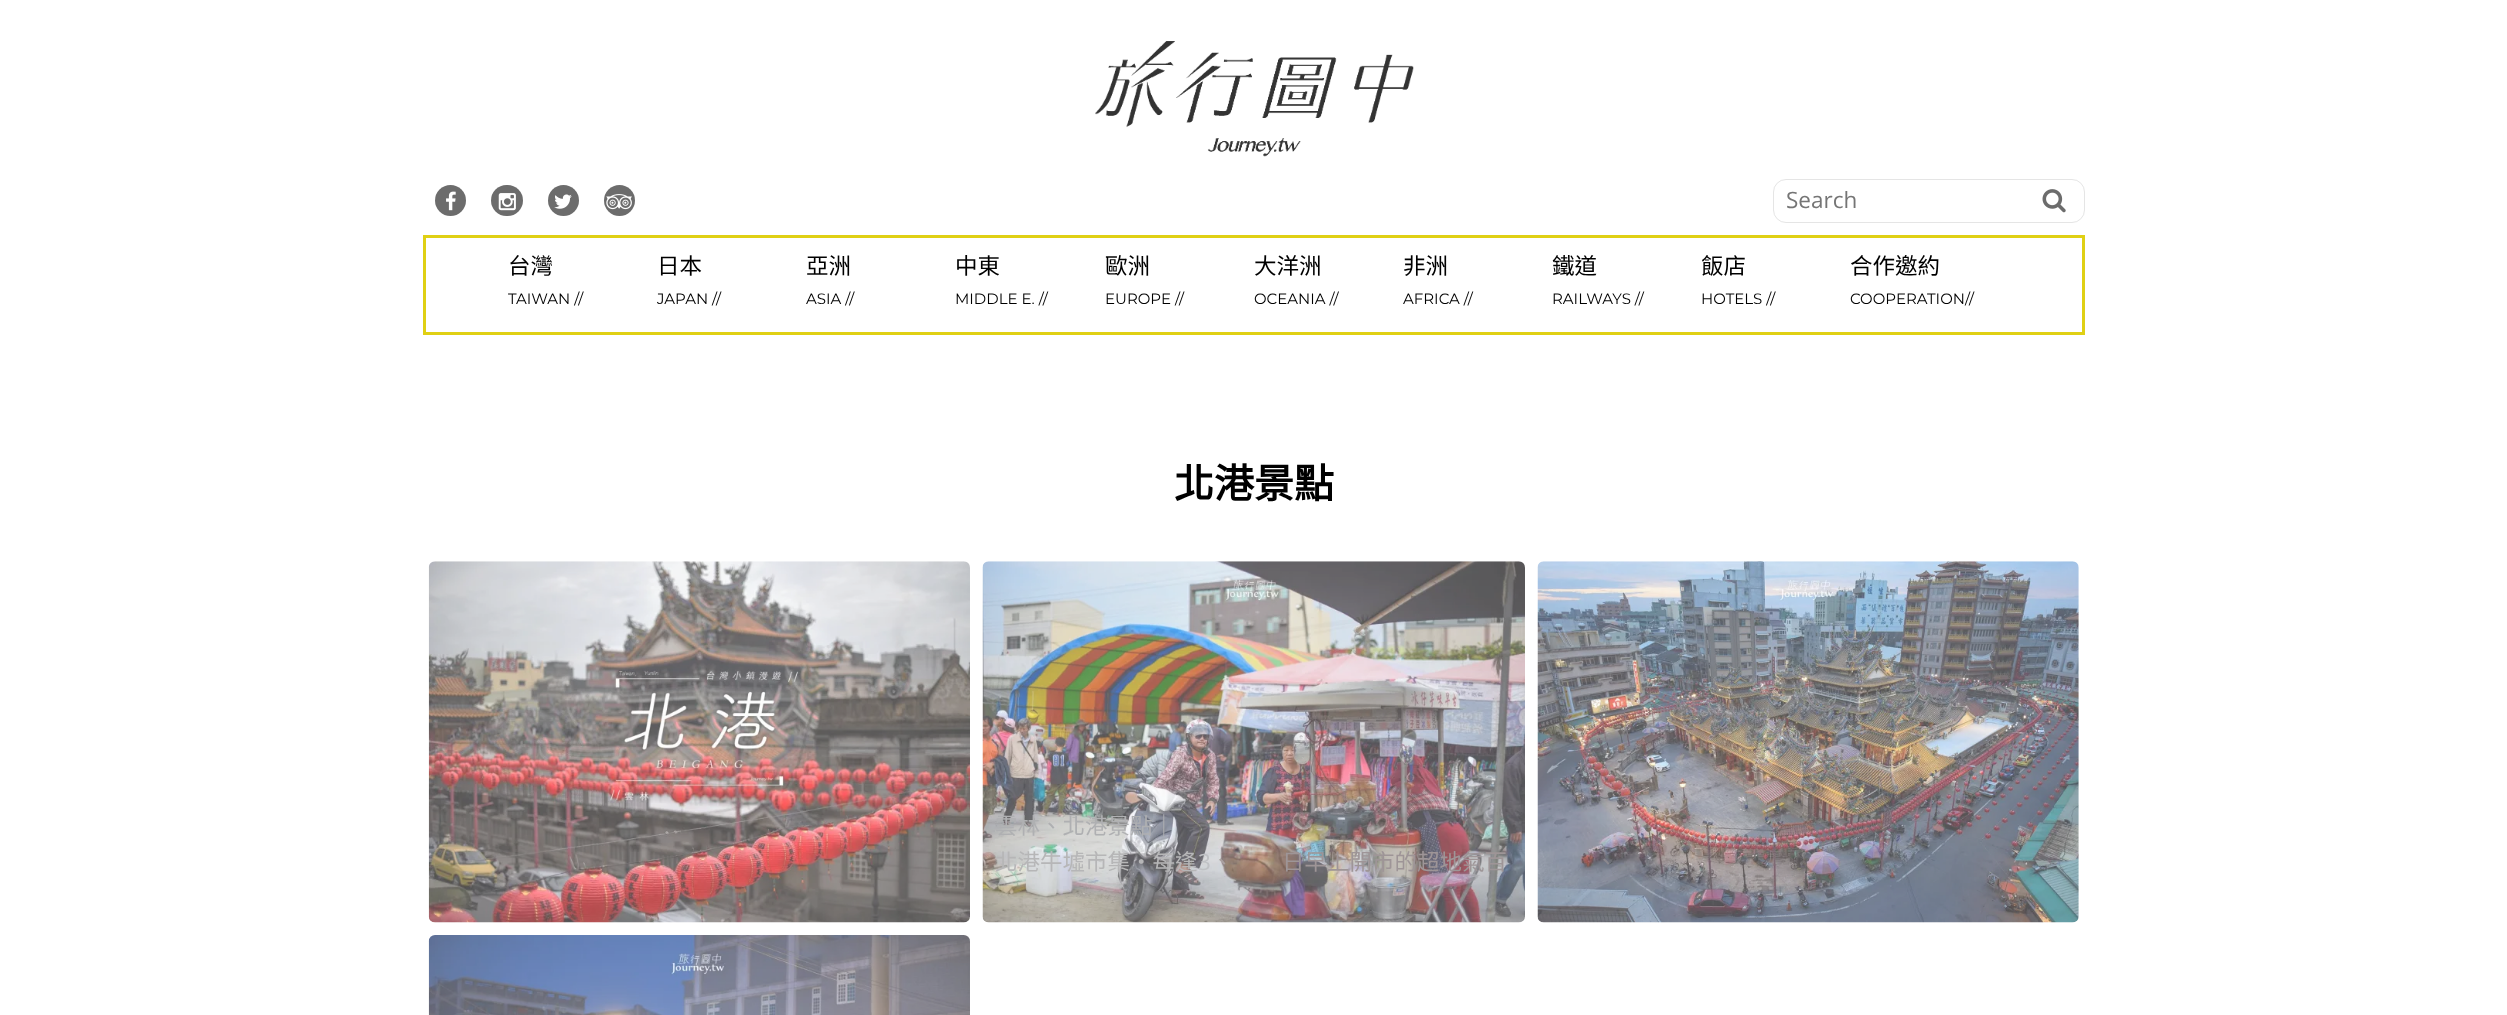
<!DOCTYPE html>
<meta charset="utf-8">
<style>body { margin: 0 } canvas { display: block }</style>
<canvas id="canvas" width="2507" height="1015"></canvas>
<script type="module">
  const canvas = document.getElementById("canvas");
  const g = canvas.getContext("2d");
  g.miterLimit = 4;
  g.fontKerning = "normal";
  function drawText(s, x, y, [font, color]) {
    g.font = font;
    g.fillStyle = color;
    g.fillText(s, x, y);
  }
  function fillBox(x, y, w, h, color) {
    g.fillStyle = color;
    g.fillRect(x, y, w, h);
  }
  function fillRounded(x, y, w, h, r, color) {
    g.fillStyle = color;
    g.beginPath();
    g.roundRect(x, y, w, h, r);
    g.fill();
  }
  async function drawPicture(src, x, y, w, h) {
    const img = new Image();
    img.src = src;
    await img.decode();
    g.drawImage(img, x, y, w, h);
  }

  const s1 = ["22.5px Open Sans", "#757575"];
  const s2 = ["22.5px Noto Sans CJK TC", "#000000"];
  const s3 = ["15px Montserrat", "#000000"];
  const s4 = ["bold 40px Noto Sans CJK TC", "#000000"];
  const s5 = ["22.5px Noto Sans CJK TC", "#AFB0B2"];
  const s6 = ["22.5px Noto Sans CJK TC", "#B6B6B7"];
  const s7 = ["22.5px Open Sans", "#BFC1C4"];
  const s8 = ["22.5px Noto Sans CJK TC", "#AAA1A0"];
  const s9 = ["22.5px Noto Sans CJK TC", "#9E9597"];
  const s10 = ["22.5px Noto Sans CJK TC", "#8B888E"];

  fillBox(0, 0, 2507, 1015, "#FFFFFF");
  await drawPicture("pic1.png", 1095, 41, 319, 116);
  g.fillStyle = "#6C6C6C";
  g.beginPath();
  g.arc(450.5, 200.5, 15.5, 0, Math.PI * 2);
  g.fill();
  await drawPicture("pic2.png", 446, 191, 10, 20);
  fillRounded(491, 185, 32, 31, 15.5, "#6C6C6C");
  await drawPicture("pic3.png", 498, 193, 18, 18);
  g.beginPath();
  g.arc(563.5, 200.5, 15.5, 0, Math.PI * 2);
  g.fill();
  await drawPicture("pic4.png", 554, 194, 18, 15);
  g.beginPath();
  g.arc(619.5, 200.5, 15.5, 0, Math.PI * 2);
  g.fill();
  await drawPicture("pic5.png", 606, 194, 26, 16);
  g.beginPath();
  g.roundRect(1773.5, 179.5, 311, 43, 12.5);
  g.strokeStyle = "#E5E5E5";
  g.stroke();
  drawText("Search", 1786, 208, s1);
  await drawPicture("pic6.png", 2042, 189, 24, 24);
  g.strokeStyle = "#E0D014";
  g.lineWidth = 3;
  g.strokeRect(424.5, 236.5, 1659, 97);
  drawText("台灣", 508, 274, s2);
  drawText("TAIWAN //", 508, 304, s3);
  drawText("日本", 657, 274, s2);
  drawText("JAPAN //", 657, 304, s3);
  drawText("亞洲", 806, 274, s2);
  drawText("ASIA //", 806, 304, s3);
  drawText("中東", 955, 274, s2);
  drawText("MIDDLE E. //", 955, 304, s3);
  drawText("歐洲", 1105, 274, s2);
  drawText("EUROPE //", 1105, 304, s3);
  drawText("大洋洲", 1254, 274, s2);
  drawText("OCEANIA //", 1254, 304, s3);
  drawText("非洲", 1403, 274, s2);
  drawText("AFRICA //", 1403, 304, s3);
  drawText("鐵道", 1552, 274, s2);
  drawText("RAILWAYS //", 1552, 304, s3);
  drawText("飯店", 1701, 274, s2);
  drawText("HOTELS //", 1701, 304, s3);
  drawText("合作邀約", 1850, 274, s2);
  drawText("COOPERATION//", 1850, 304, s3);
  drawText("北港景點", 1174, 498, s4);
  await drawPicture("pic7.png", 428, 561, 542, 362);
  await drawPicture("pic8.png", 982, 561, 543, 362);
  drawText("雲林、北港景點｜", 995, 834, s5);
  drawText("北港牛墟市集・每逢", 995, 870, s6);
  drawText("3", 1198, 870, s7);
  drawText("、", 1211, 870, s8);
  drawText("日早上開市的超地氣百", 1282, 870, s9);
  await drawPicture("pic9.png", 1537, 561, 542, 362);
  drawText("、", 1595, 870, s10);
  await drawPicture("pic10.png", 428, 935, 542, 80);
</script>
